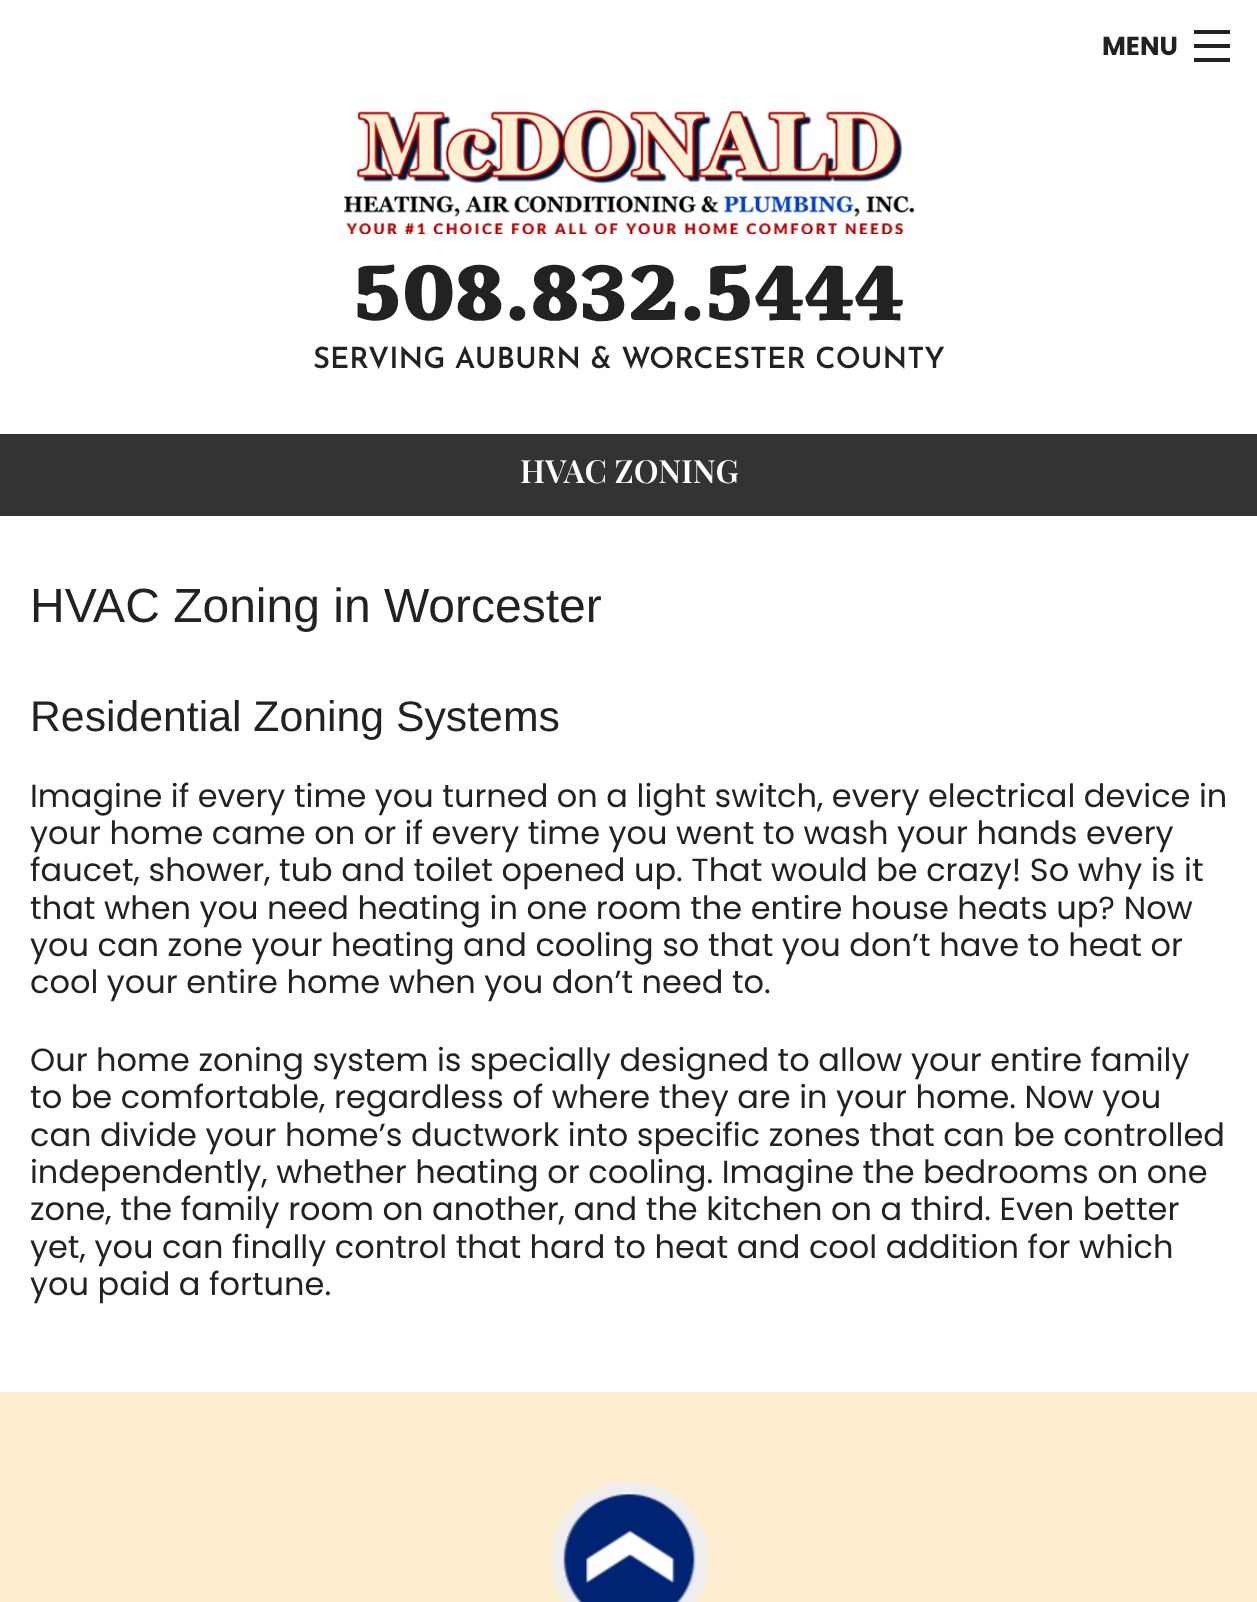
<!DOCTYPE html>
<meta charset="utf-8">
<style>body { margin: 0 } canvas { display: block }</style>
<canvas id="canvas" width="1257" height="1602"></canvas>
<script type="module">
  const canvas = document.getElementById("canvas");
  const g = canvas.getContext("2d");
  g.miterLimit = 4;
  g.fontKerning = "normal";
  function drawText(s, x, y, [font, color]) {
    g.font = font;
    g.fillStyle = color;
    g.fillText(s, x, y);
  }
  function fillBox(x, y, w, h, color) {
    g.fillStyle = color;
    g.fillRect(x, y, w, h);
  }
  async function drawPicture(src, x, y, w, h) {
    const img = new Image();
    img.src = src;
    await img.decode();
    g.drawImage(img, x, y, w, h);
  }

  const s1 = ["bold 26px Poppins", "#222222"];
  const s2 = ["900 80px Tienne", "#222222"];
  const s3 = ["600 29.3px Josefin Sans", "#222222"];
  const s4 = ["600 32px Playfair Display", "#FFFFFF"];
  const s5 = ["48px Liberation Sans", "#222222"];
  const s6 = ["42.75px Liberation Sans", "#222222"];
  const s7 = ["32px Poppins", "#222222"];

  fillBox(0, 0, 1257, 1602, "#FFFFFF");
  drawText("MENU", 1102, 55, s1);
  fillBox(1194, 58, 36, 4, "#222222");
  fillBox(1194, 44, 36, 4, "#222222");
  fillBox(1194, 30, 36, 4, "#222222");
  await drawPicture("pic1.png", 344, 110, 570, 124);
  drawText("508.832.5444", 354, 320, s2);
  drawText("SERVING AUBURN & WORCESTER COUNTY", 313, 368, s3);
  fillBox(0, 434, 1257, 82, "#333333");
  drawText("HVAC ZONING", 520, 483, s4);
  drawText("HVAC Zoning in Worcester", 30, 622, s5);
  drawText("Residential Zoning Systems", 30, 731, s6);
  drawText("Imagine if every time you turned on a light switch, every electrical device in", 30, 807, s7);
  drawText("your home came on or if every time you went to wash your hands every", 30, 844, s7);
  drawText("faucet, shower, tub and toilet opened up. That would be crazy! So why is it", 30, 881, s7);
  drawText("that when you need heating in one room the entire house heats up? Now", 30, 919, s7);
  drawText("you can zone your heating and cooling so that you don’t have to heat or", 30, 956, s7);
  drawText("cool your entire home when you don’t need to.", 30, 993, s7);
  drawText("Our home zoning system is specially designed to allow your entire family", 30, 1071, s7);
  drawText("to be comfortable, regardless of where they are in your home. Now you", 30, 1108, s7);
  drawText("can divide your home’s ductwork into specific zones that can be controlled", 30, 1146, s7);
  drawText("independently, whether heating or cooling. Imagine the bedrooms on one", 30, 1183, s7);
  drawText("zone, the family room on another, and the kitchen on a third. Even better", 30, 1220, s7);
  drawText("yet, you can finally control that hard to heat and cool addition for which", 30, 1258, s7);
  drawText("you paid a fortune.", 30, 1295, s7);
  fillBox(0, 1392, 1257, 210, "#FFEDCF");
  await drawPicture("pic2.png", 551, 1481, 159, 121);
</script>
